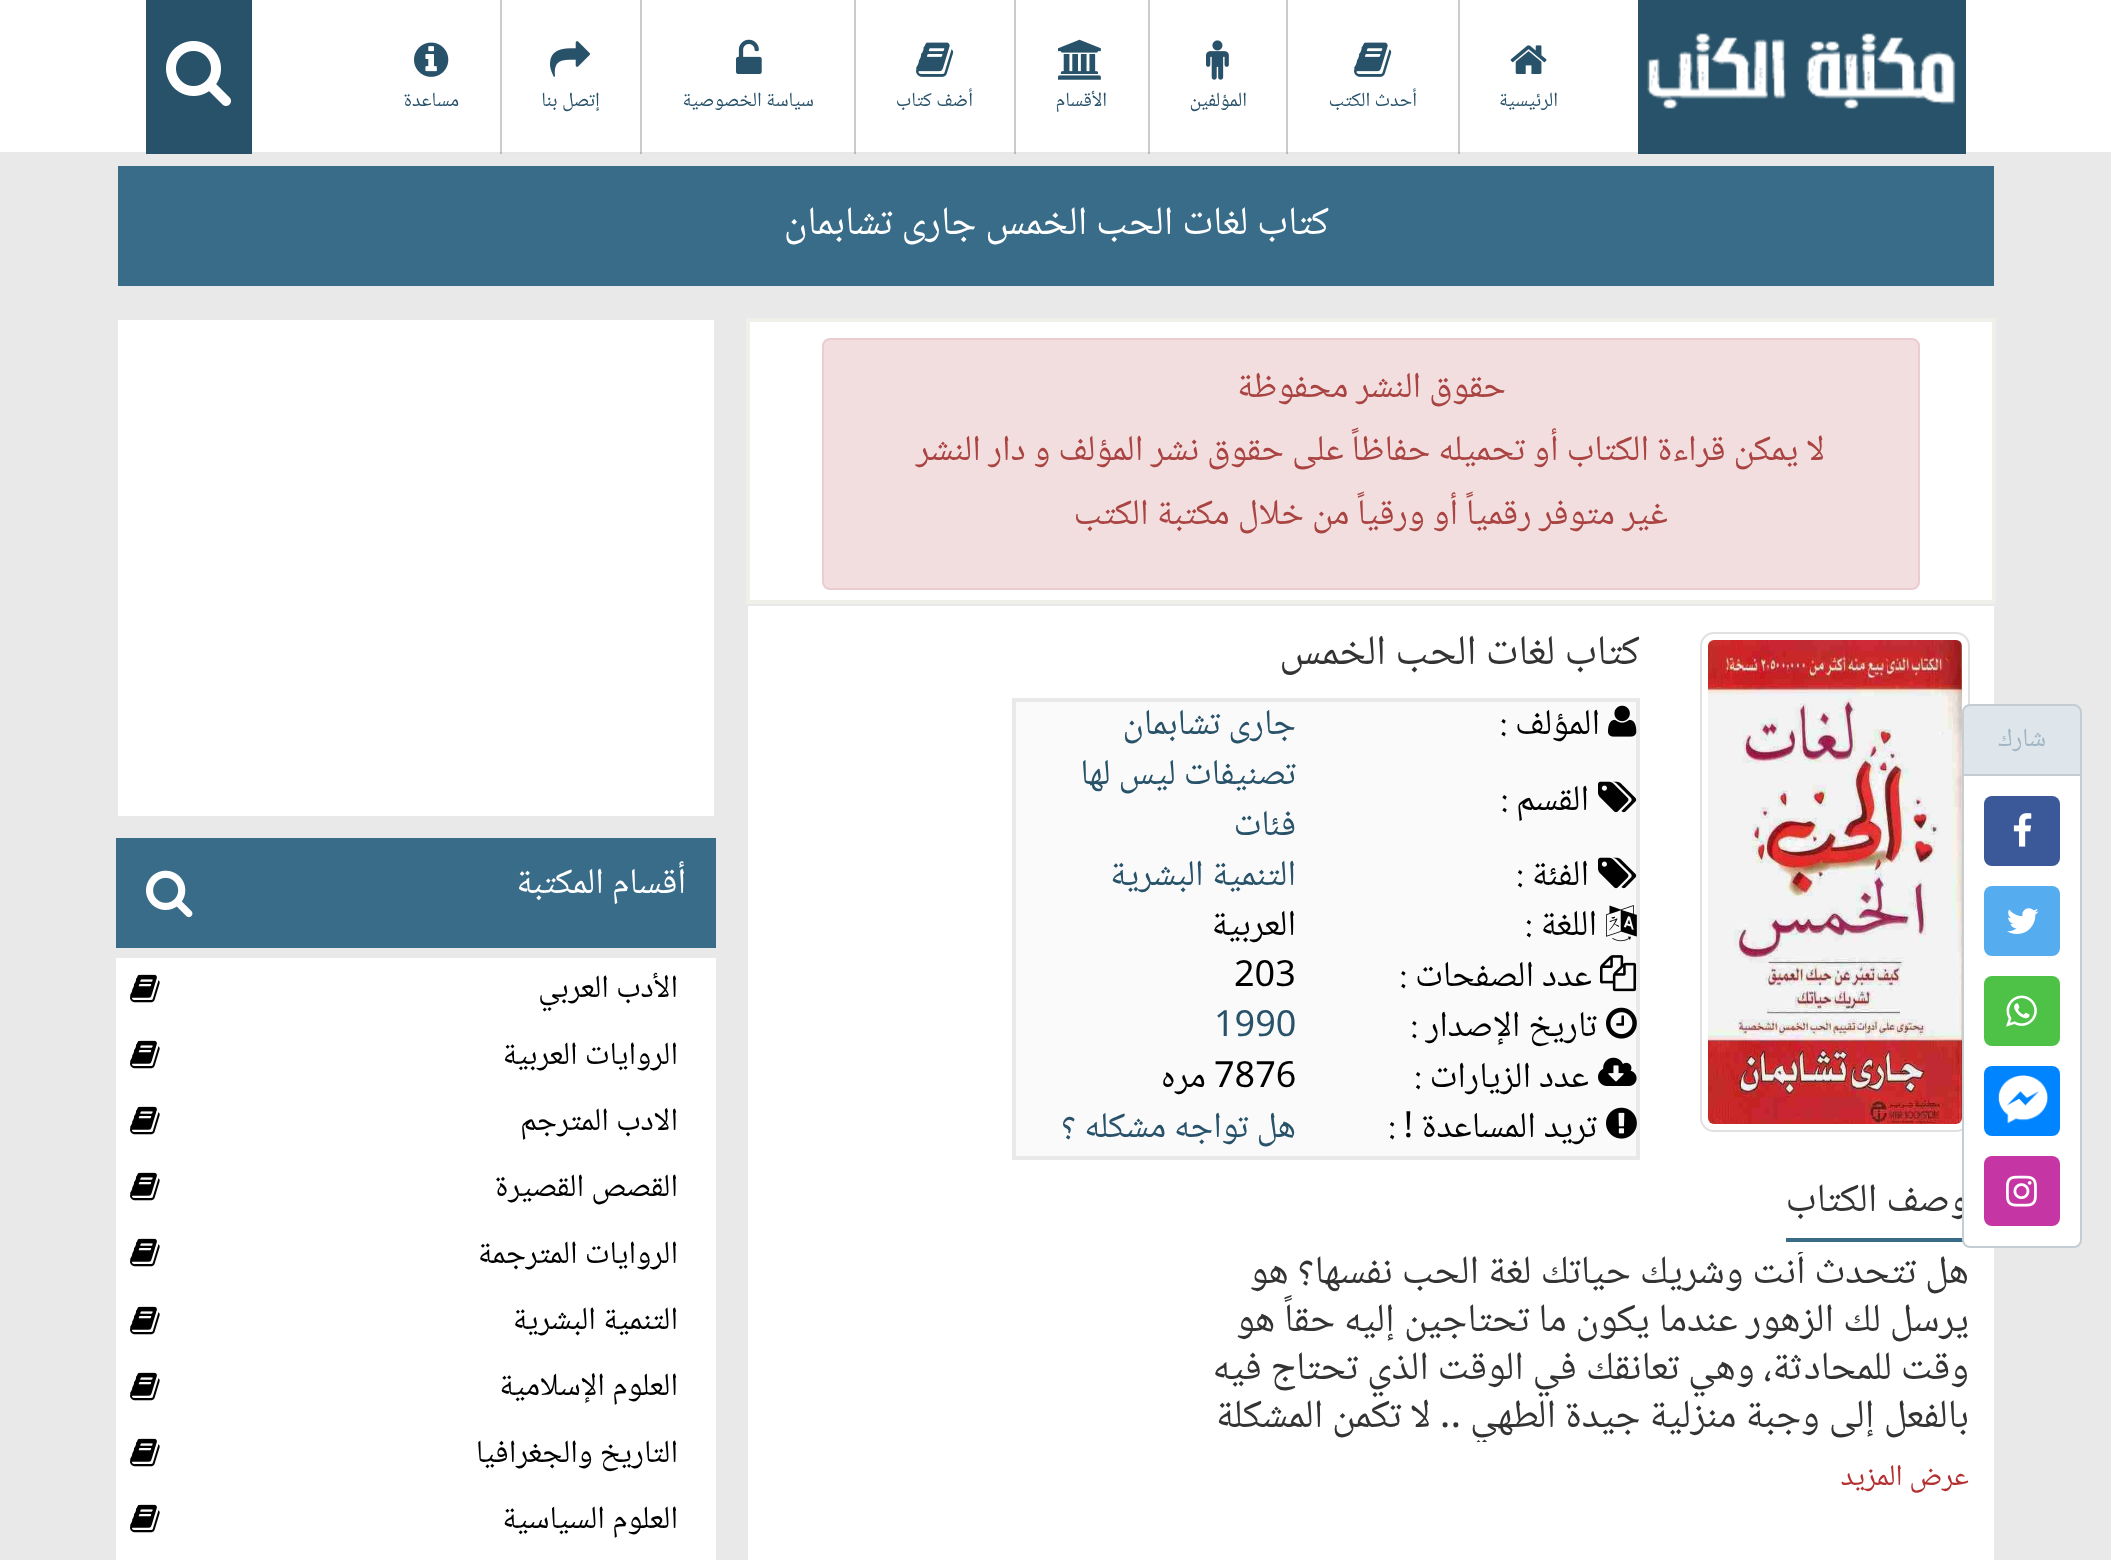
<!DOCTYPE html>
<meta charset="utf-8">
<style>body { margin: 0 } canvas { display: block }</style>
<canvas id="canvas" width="2111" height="1560"></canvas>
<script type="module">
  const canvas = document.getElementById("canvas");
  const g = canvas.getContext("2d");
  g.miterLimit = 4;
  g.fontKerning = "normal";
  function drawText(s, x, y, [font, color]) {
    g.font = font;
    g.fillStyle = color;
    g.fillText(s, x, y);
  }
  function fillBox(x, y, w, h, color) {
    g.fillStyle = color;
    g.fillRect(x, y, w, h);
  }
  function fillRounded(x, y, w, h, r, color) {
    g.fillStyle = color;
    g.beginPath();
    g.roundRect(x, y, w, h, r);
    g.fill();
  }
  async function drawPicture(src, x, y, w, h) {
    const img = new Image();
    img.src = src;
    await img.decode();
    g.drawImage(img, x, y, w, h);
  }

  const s1 = ["20px Noto Naskh Arabic", "#285269"];
  const s2 = ["40px Noto Naskh Arabic", "#FFFFFF"];
  const s3 = ["26px Noto Naskh Arabic", "#A1B5C3"];
  const s4 = ["40px Noto Naskh Arabic", "#333333"];
  const s5 = ["36px Noto Naskh Arabic", "#A94442"];
  const s6 = ["42px Noto Naskh Arabic", "#333333"];
  const s7 = ["36px Noto Naskh Arabic", "#000000"];
  const s8 = ["36px Noto Naskh Arabic", "#285269"];
  const s9 = ["30px Noto Naskh Arabic", "#B33030"];
  const s10 = ["36px Noto Naskh Arabic", "#FFFFFF"];
  const s11 = ["32px Noto Naskh Arabic", "#000000"];

  fillBox(0, 0, 2111, 1560, "#E9E9E9");
  fillBox(0, 0, 2111, 152, "#FFFFFF");
  fillBox(500, 0, 2, 154, "#CCCCCC");
  fillBox(640, 0, 2, 154, "#CCCCCC");
  fillBox(854, 0, 2, 154, "#CCCCCC");
  fillBox(1014, 0, 2, 154, "#CCCCCC");
  fillBox(1148, 0, 2, 154, "#CCCCCC");
  fillBox(1286, 0, 2, 154, "#CCCCCC");
  fillBox(1458, 0, 2, 154, "#CCCCCC");
  fillBox(500, 152, 960, 2, "#E8E8E8");
  fillBox(500, 152, 2, 2, "#BABABA");
  fillBox(640, 152, 2, 2, "#BABABA");
  fillBox(854, 152, 2, 2, "#BABABA");
  fillBox(1014, 152, 2, 2, "#BABABA");
  fillBox(1148, 152, 2, 2, "#BABABA");
  fillBox(1286, 152, 2, 2, "#BABABA");
  fillBox(1458, 152, 2, 2, "#BABABA");
  fillBox(1638, 0, 328, 154, "#285269");
  await drawPicture("pic1.png", 1647, 33, 309, 76);
  await drawPicture("pic2.png", 1510, 45, 37, 29);
  g.direction = "rtl";
  drawText("الرئيسية", 1558, 106, s1);
  await drawPicture("pic3.png", 1354, 42, 38, 35);
  drawText("أحدث الكتب", 1417, 106, s1);
  await drawPicture("pic4.png", 1206, 40, 23, 40);
  drawText("المؤلفين", 1247, 106, s1);
  await drawPicture("pic5.png", 1058, 39, 43, 41);
  drawText("الأقسام", 1107, 106, s1);
  await drawPicture("pic3.png", 916, 42, 38, 35);
  drawText("أضف كتاب", 973, 106, s1);
  await drawPicture("pic6.png", 736, 39, 26, 35);
  drawText("سياسة الخصوصية", 814, 106, s1);
  await drawPicture("pic7.png", 550, 41, 40, 36);
  drawText("إتصل بنا", 600, 106, s1);
  await drawPicture("pic8.png", 414, 42, 35, 35);
  drawText("مساعدة", 459, 106, s1);
  fillBox(146, 0, 106, 154, "#285269");
  await drawPicture("pic9.png", 166, 41, 65, 65);
  fillBox(118, 166, 1876, 120, "#386C89");
  drawText("كتاب لغات الحب الخمس جارى تشابمان", 1329, 234, s2);
  fillBox(748, 606, 1246, 954, "#FFFFFF");
  g.beginPath();
  g.roundRect(1701, 633, 268, 498, 13);
  g.strokeStyle = "#E1E1E1";
  g.lineWidth = 2;
  g.stroke();
  g.fillStyle = "#DEE6EC";
  g.beginPath();
  g.roundRect(1962, 704, 120, 70, [8, 8, 0, 0]);
  g.fill();
  g.fillStyle = "#C4CDD4";
  g.beginPath();
  g.moveTo(1970, 704);
  g.lineTo(2074, 704);
  g.bezierCurveTo(2078, 704, 2082, 708, 2082, 712);
  g.lineTo(2082, 774);
  g.lineTo(1962, 774);
  g.lineTo(1962, 712);
  g.bezierCurveTo(1962, 708, 1966, 704, 1970, 704);
  g.closePath();
  g.moveTo(1970, 706);
  g.lineTo(2074, 706);
  g.bezierCurveTo(2077, 706, 2080, 709, 2080, 712);
  g.lineTo(2080, 774);
  g.lineTo(1964, 774);
  g.lineTo(1964, 712);
  g.bezierCurveTo(1964, 709, 1967, 706, 1970, 706);
  g.closePath();
  g.fill("evenodd");
  drawText("شارك", 2046, 746, s3);
  drawText("وصف الكتاب", 1969, 1211, s4);
  fillBox(1786, 1238, 184, 4, "#386C89");
  g.fillStyle = "#FFFFFF";
  g.beginPath();
  g.roundRect(1963, 775, 118, 472, [0, 0, 7, 7]);
  g.fill();
  g.strokeStyle = "#C4CDD4";
  g.stroke();
  fillRounded(1984, 796, 76, 70, 8, "#3B5998");
  await drawPicture("pic10.png", 2013, 813, 19, 34);
  fillRounded(1984, 886, 76, 70, 8, "#55ACEE");
  await drawPicture("pic11.png", 2007, 908, 32, 26);
  fillRounded(1984, 976, 76, 70, 8, "#4DC247");
  await drawPicture("pic12.png", 2006, 995, 31, 32);
  fillRounded(1984, 1066, 76, 70, 8, "#0084FF");
  await drawPicture("pic13.png", 1998, 1075, 50, 49);
  fillRounded(1984, 1156, 76, 70, 8, "#C536A4");
  await drawPicture("pic14.png", 2006, 1175, 31, 32);
  g.fillStyle = "#FFFFFF";
  g.beginPath();
  g.rect(748, 320, 1246, 282);
  g.fill();
  g.strokeStyle = "#F0F0EA";
  g.lineWidth = 4;
  g.stroke();
  g.fillStyle = "#F2DEDE";
  g.beginPath();
  g.roundRect(823, 339, 1096, 250, 7);
  g.fill();
  g.strokeStyle = "#EBCCD1";
  g.lineWidth = 2;
  g.stroke();
  drawText("حقوق النشر محفوظة", 1506, 397, s5);
  drawText("لا يمكن قراءة الكتاب أو تحميله حفاظاً على حقوق نشر المؤلف و دار النشر", 1825, 460, s5);
  drawText("غير متوفر رقمياً أو ورقياً من خلال مكتبة الكتب", 1668, 524, s5);
  await drawPicture("pic15.png", 1708, 640, 254, 484);
  drawText("كتاب لغات الحب الخمس", 1640, 664, s6);
  g.fillStyle = "#FAFAFA";
  g.beginPath();
  g.rect(1014, 700, 624, 458);
  g.fill();
  g.strokeStyle = "#E9E9E9";
  g.lineWidth = 4;
  g.stroke();
  await drawPicture("pic16.png", 1608, 705, 29, 32);
  drawText("المؤلف :", 1600, 734, s7);
  drawText("جارى تشابمان", 1296, 734, s8);
  await drawPicture("pic17.png", 1598, 781, 39, 32);
  drawText("القسم :", 1589, 810, s7);
  drawText("تصنيفات ليس لها", 1296, 784, s8);
  drawText("فئات", 1296, 835, s8);
  await drawPicture("pic17.png", 1598, 857, 39, 32);
  drawText("الفئة :", 1589, 885, s7);
  drawText("التنمية البشرية", 1296, 885, s8);
  await drawPicture("pic18.png", 1606, 905, 31, 37);
  drawText("اللغة :", 1597, 935, s7);
  drawText("العربية", 1296, 935, s7);
  await drawPicture("pic19.png", 1600, 955, 36, 37);
  drawText("عدد الصفحات :", 1592, 986, s7);
  g.direction = "ltr";
  drawText("203", 1234, 986, s7);
  await drawPicture("pic20.png", 1606, 1007, 31, 32);
  g.direction = "rtl";
  drawText("تاريخ الإصدار :", 1597, 1036, s7);
  g.direction = "ltr";
  drawText("1990", 1214, 1036, s8);
  await drawPicture("pic21.png", 1598, 1057, 39, 29);
  g.direction = "rtl";
  drawText("عدد الزيارات :", 1589, 1087, s7);
  g.direction = "ltr";
  drawText("7876", 1214, 1087, s7);
  g.direction = "rtl";
  drawText("مره", 1206, 1087, s7);
  await drawPicture("pic22.png", 1606, 1107, 31, 32);
  drawText("تريد المساعدة ! :", 1597, 1137, s7);
  drawText("هل تواجه مشكله ؟", 1296, 1137, s8);
  g.save();
  g.beginPath();
  g.rect(1202, 1252, 768, 190);
  g.clip();
  drawText("هل تتحدث أنت وشريك حياتك لغة الحب نفسها؟ هو", 1969, 1283, s4);
  g.restore();
  drawText("يرسل لك الزهور عندما يكون ما تحتاجين إليه حقاً هو", 1969, 1331, s4);
  drawText("وقت للمحادثة، وهي تعانقك في الوقت الذي تحتاج فيه", 1969, 1379, s4);
  g.save();
  g.beginPath();
  g.rect(1202, 1252, 768, 190);
  g.clip();
  drawText("بالفعل إلى وجبة منزلية جيدة الطهي .. لا تكمن المشكلة", 1969, 1427, s4);
  g.restore();
  drawText("عرض المزيد", 1969, 1485, s9);
  fillBox(118, 320, 596, 496, "#FFFFFF");
  fillBox(116, 838, 600, 110, "#386C89");
  drawText("أقسام المكتبة", 686, 893, s10);
  await drawPicture("pic23.png", 146, 870, 47, 48);
  fillBox(116, 958, 600, 602, "#FFFFFF");
  drawText("الأدب العربي", 678, 997, s11);
  await drawPicture("pic24.png", 130, 974, 30, 29);
  drawText("الروايات العربية", 678, 1064, s11);
  await drawPicture("pic24.png", 130, 1040, 30, 29);
  drawText("الادب المترجم", 678, 1130, s11);
  await drawPicture("pic24.png", 130, 1106, 30, 29);
  drawText("القصص القصيرة", 678, 1196, s11);
  await drawPicture("pic24.png", 130, 1172, 30, 29);
  drawText("الروايات المترجمة", 678, 1263, s11);
  await drawPicture("pic24.png", 130, 1238, 30, 29);
  drawText("التنمية البشرية", 678, 1329, s11);
  await drawPicture("pic24.png", 130, 1306, 30, 29);
  drawText("العلوم الإسلامية", 678, 1395, s11);
  await drawPicture("pic24.png", 130, 1372, 30, 29);
  drawText("التاريخ والجغرافيا", 678, 1462, s11);
  await drawPicture("pic24.png", 130, 1438, 30, 29);
  drawText("العلوم السياسية", 678, 1528, s11);
  await drawPicture("pic24.png", 130, 1504, 30, 29);
</script>
